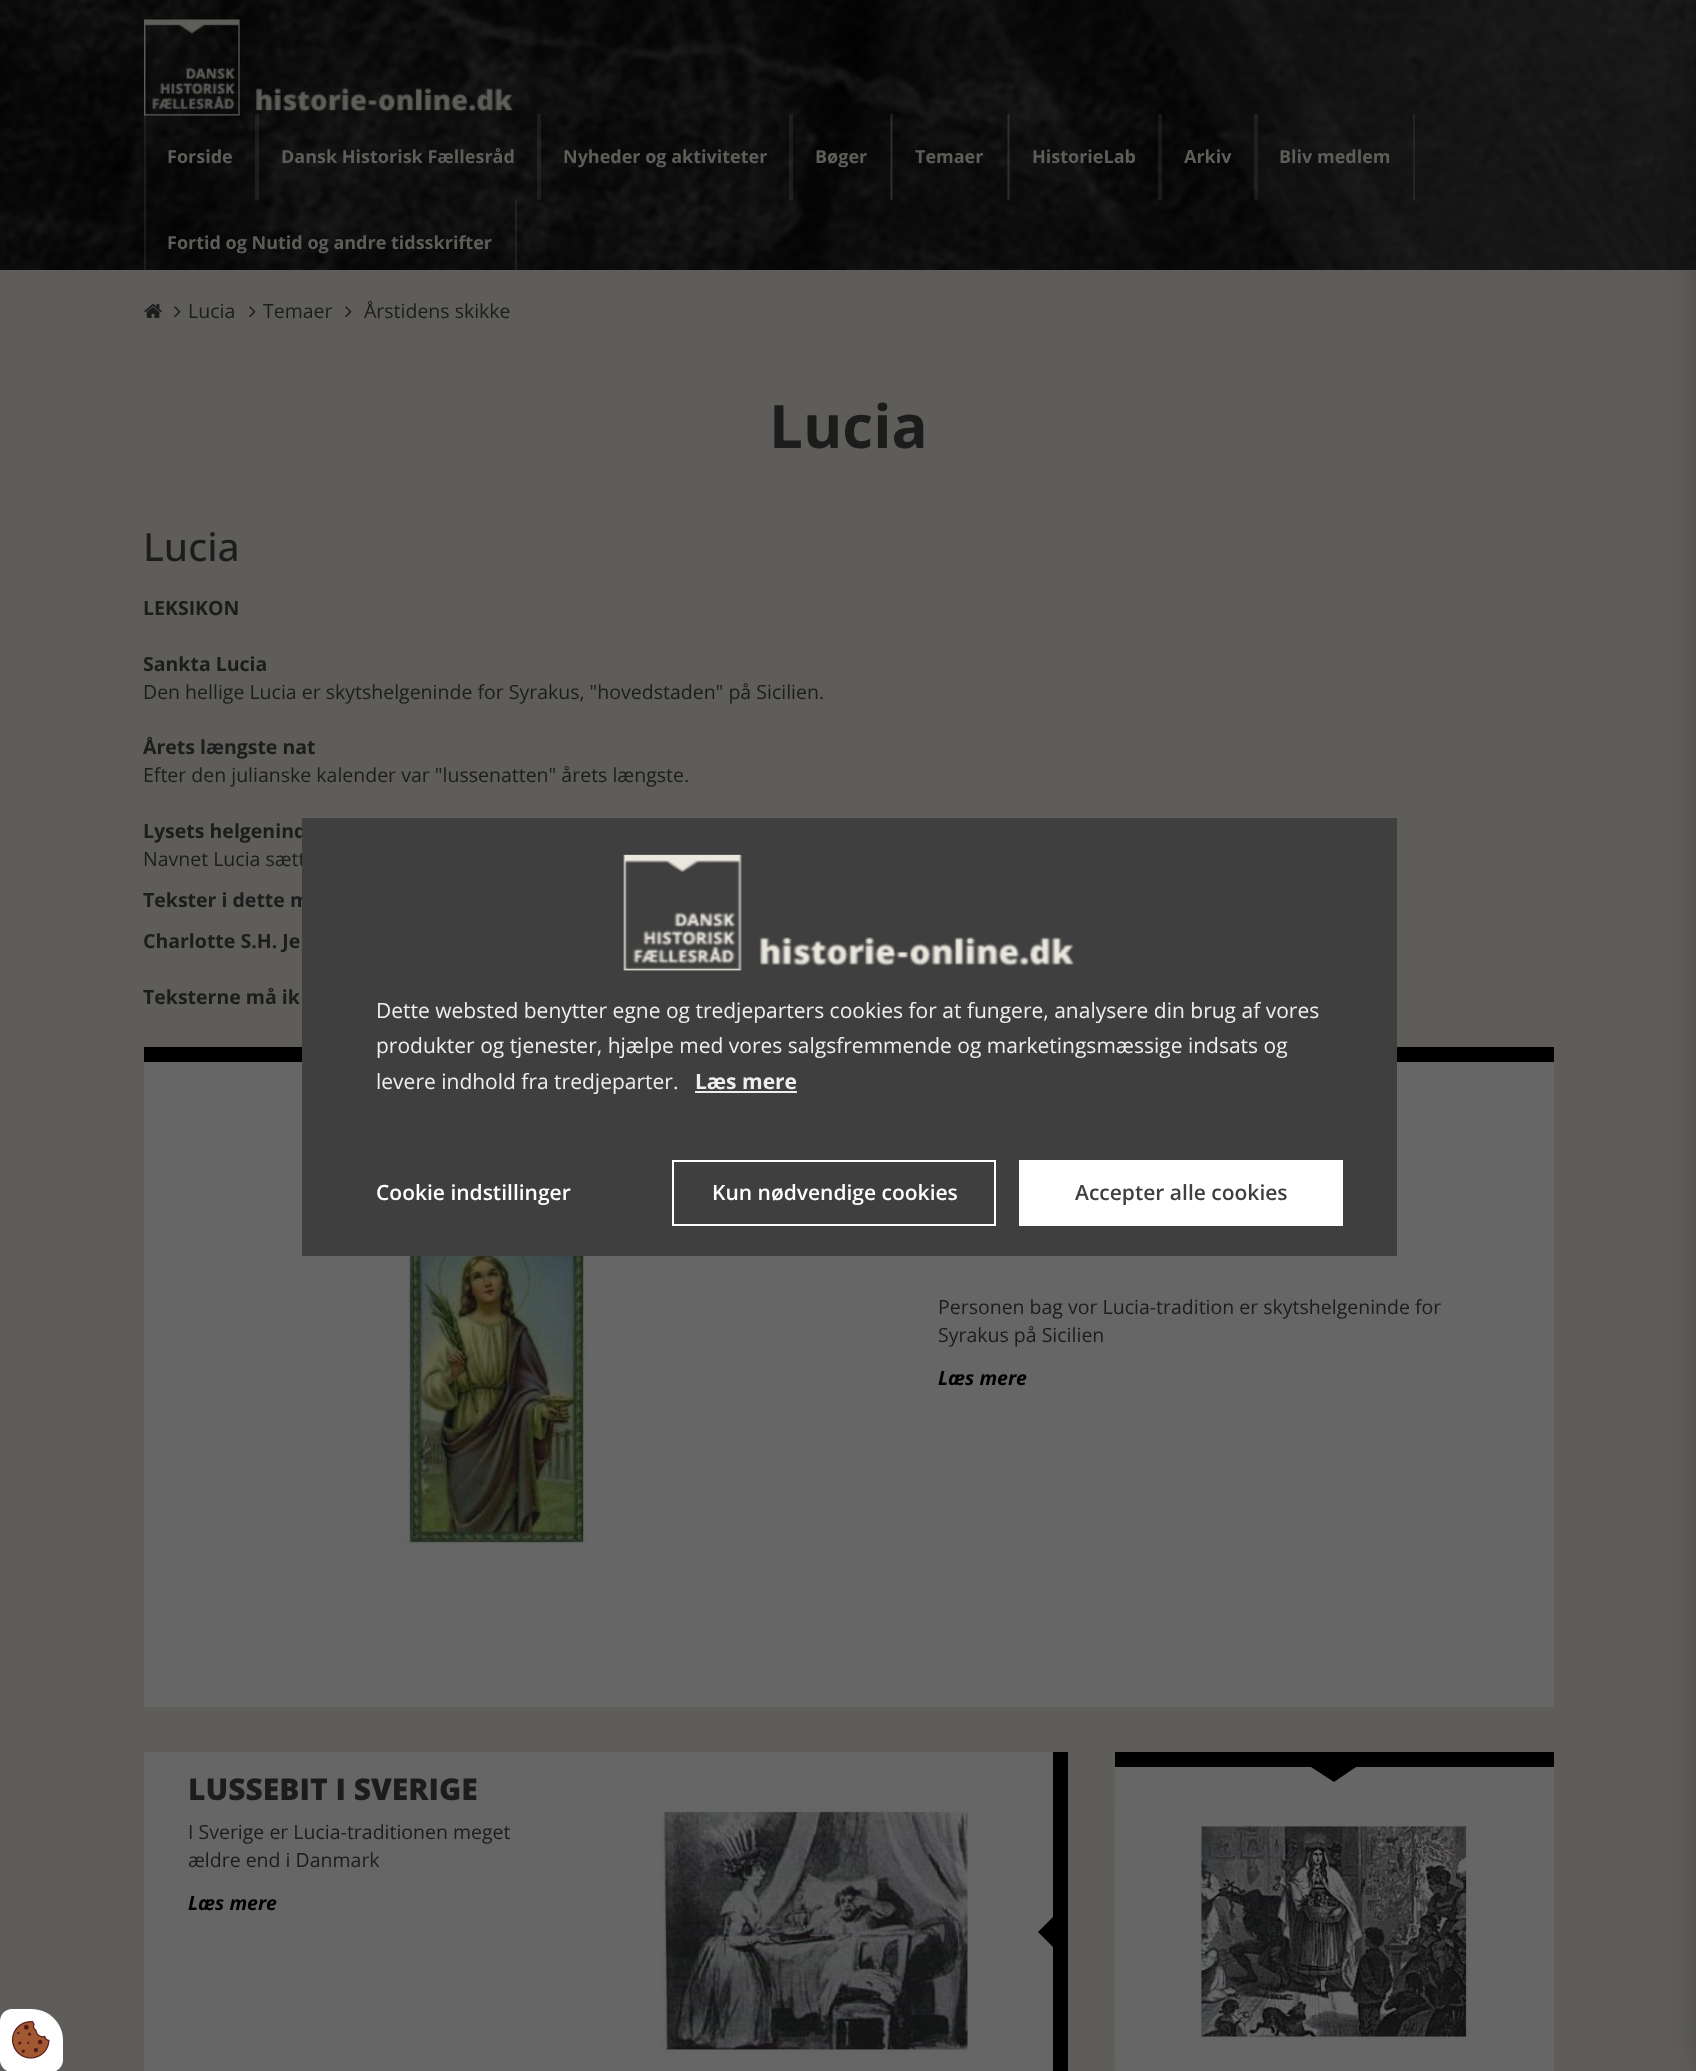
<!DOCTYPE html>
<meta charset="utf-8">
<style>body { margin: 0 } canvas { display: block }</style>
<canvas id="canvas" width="1696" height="2071"></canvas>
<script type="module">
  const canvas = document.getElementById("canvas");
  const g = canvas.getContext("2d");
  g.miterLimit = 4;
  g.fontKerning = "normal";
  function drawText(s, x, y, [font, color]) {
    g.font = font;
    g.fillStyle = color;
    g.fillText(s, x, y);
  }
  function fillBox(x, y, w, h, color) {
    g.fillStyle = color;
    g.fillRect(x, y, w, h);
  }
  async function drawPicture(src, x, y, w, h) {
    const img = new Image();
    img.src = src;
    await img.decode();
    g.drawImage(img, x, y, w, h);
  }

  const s1 = ["bold 18px Open Sans", "#5E5D5A"];
  const s2 = ["19.5px Open Sans", "#1C1C1C"];
  const s3 = ["bold 60px Open Sans", "#1C1C1C"];
  const s4 = ["500 39px Open Sans", "#1C1C1C"];
  const s5 = ["bold 19.5px Open Sans", "#1C1C1C"];
  const s6 = ["italic bold 19.5px Open Sans", "#000000"];
  const s7 = ["800 30px Open Sans", "#1C1C1C"];
  const s8 = ["21px Open Sans", "#EEEEEE"];
  const s9 = ["bold 21px Open Sans", "#EEEEEE"];
  const s10 = ["600 21px Open Sans", "#FFFFFF"];
  const s11 = ["600 21px Open Sans", "#3F3F3F"];

  fillBox(0, 0, 1696, 2071, "#5E5D5A");
  await drawPicture("pic1.png", 0, 0, 1696, 270);
  await drawPicture("pic2.png", 144, 19, 369, 97);
  fillBox(255, 114, 2, 86, "rgba(102, 102, 102, 0.2)");
  fillBox(144, 114, 2, 86, "rgba(102, 102, 102, 0.2)");
  drawText("Forside", 167, 163, s1);
  fillBox(537, 114, 2, 86, "rgba(102, 102, 102, 0.2)");
  fillBox(257, 114, 2, 86, "rgba(102, 102, 102, 0.2)");
  drawText("Dansk Historisk Fællesråd", 281, 163, s1);
  fillBox(789, 114, 2, 86, "rgba(102, 102, 102, 0.2)");
  fillBox(539, 114, 2, 86, "rgba(102, 102, 102, 0.2)");
  drawText("Nyheder og aktiviteter", 563, 163, s1);
  fillBox(890, 114, 2, 86, "rgba(102, 102, 102, 0.2)");
  fillBox(791, 114, 2, 86, "rgba(102, 102, 102, 0.2)");
  drawText("Bøger", 815, 163, s1);
  fillBox(1008, 114, 2, 86, "rgba(102, 102, 102, 0.2)");
  fillBox(1007, 114, 2, 86, "rgba(102, 102, 102, 0.2)");
  fillBox(891, 114, 2, 86, "rgba(102, 102, 102, 0.2)");
  drawText("Temaer", 915, 163, s1);
  fillBox(1158, 114, 2, 86, "rgba(102, 102, 102, 0.2)");
  drawText("HistorieLab", 1032, 163, s1);
  fillBox(1254, 114, 2, 86, "rgba(102, 102, 102, 0.2)");
  fillBox(1160, 114, 2, 86, "rgba(102, 102, 102, 0.2)");
  drawText("Arkiv", 1184, 163, s1);
  fillBox(1413, 114, 2, 86, "rgba(102, 102, 102, 0.2)");
  fillBox(1256, 114, 2, 86, "rgba(102, 102, 102, 0.2)");
  drawText("Bliv medlem", 1279, 163, s1);
  fillBox(515, 200, 2, 70, "rgba(102, 102, 102, 0.2)");
  fillBox(144, 200, 2, 70, "rgba(102, 102, 102, 0.2)");
  drawText("Fortid og Nutid og andre tidsskrifter", 167, 249, s1);
  g.fillStyle = "rgba(0, 0, 0, 0.75)";
  g.filter = "blur(22.5px)";
  g.beginPath();
  g.rect(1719, 6, 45, 2060);
  g.fill();
  g.filter = "none";
  await drawPicture("pic3.png", 144, 304, 18, 14);
  await drawPicture("pic4.png", 174, 306, 7, 12);
  drawText("Lucia", 188, 318, s2);
  await drawPicture("pic4.png", 249, 306, 7, 12);
  drawText("Temaer", 263, 318, s2);
  await drawPicture("pic4.png", 345, 306, 7, 12);
  drawText("Årstidens skikke", 364, 318, s2);
  drawText("Lucia", 769, 448, s3);
  drawText("Lucia", 143, 561, s4);
  drawText("LEKSIKON", 143, 615, s5);
  drawText("Sankta Lucia", 143, 671, s5);
  drawText("Den hellige Lucia er skytshelgeninde for Syrakus, \"hovedstaden\" på Sicilien.", 143, 699, s2);
  drawText("Årets længste nat", 143, 754, s5);
  drawText("Efter den julianske kalender var \"lussenatten\" årets længste.", 143, 782, s2);
  drawText("Lysets helgenind", 143, 838, s5);
  drawText("Navnet Lucia sætt", 143, 866, s2);
  drawText("Tekster i dette m", 143, 907, s5);
  drawText("Charlotte S.H. Je", 143, 948, s5);
  drawText("Teksterne må ik", 143, 1004, s5);
  fillBox(144, 1062, 1410, 645, "#666666");
  fillBox(144, 1047, 1410, 15, "#000000");
  await drawPicture("pic5.png", 401, 1256, 188, 303);
  drawText("Personen bag vor Lucia-tradition er skytshelgeninde for", 938, 1314, s2);
  drawText("Syrakus på Sicilien", 938, 1342, s2);
  drawText("Læs mere", 938, 1385, s6);
  fillBox(144, 1752, 909, 319, "#666666");
  drawText("LUSSEBIT I SVERIGE", 188, 1800, s7);
  drawText("I Sverige er Lucia-traditionen meget", 188, 1839, s2);
  drawText("ældre end i Danmark", 188, 1867, s2);
  drawText("Læs mere", 188, 1910, s6);
  await drawPicture("pic6.png", 660, 1808, 315, 246);
  fillBox(1053, 1752, 15, 319, "#000000");
  g.beginPath();
  g.moveTo(1053, 1917);
  g.lineTo(1053, 1947);
  g.lineTo(1038, 1932);
  g.closePath();
  g.fill();
  fillBox(1115, 1767, 439, 304, "#666666");
  await drawPicture("pic7.png", 1114, 1809, 353, 246);
  fillBox(1115, 1752, 439, 15, "#000000");
  g.beginPath();
  g.moveTo(1311, 1767);
  g.lineTo(1356, 1767);
  g.lineTo(1334, 1782);
  g.closePath();
  g.fill();
  fillBox(302, 818, 1095, 438, "#3F3F3F");
  await drawPicture("pic8.png", 623, 854, 452, 117);
  drawText("Dette websted benytter egne og tredjeparters cookies for at fungere, analysere din brug af vores", 376, 1018, s8);
  drawText("produkter og tjenester, hjælpe med vores salgsfremmende og marketingsmæssige indsats og", 376, 1053, s8);
  drawText("levere indhold fra tredjeparter.", 376, 1089, s8);
  drawText("Læs mere", 695, 1089, s9);
  fillBox(695, 1091, 102, 2, "#EEEEEE");
  drawText("Cookie indstillinger", 376, 1200, s10);
  g.strokeStyle = "#FFFFFF";
  g.lineWidth = 2;
  g.strokeRect(673, 1161, 322, 64);
  drawText("Kun nødvendige cookies", 712, 1200, s10);
  fillBox(1019, 1160, 324, 66, "#FFFFFF");
  drawText("Accepter alle cookies", 1075, 1200, s11);
  g.fillStyle = "#FFFFFF";
  g.beginPath();
  g.moveTo(12, 2009);
  g.lineTo(31.5, 2009);
  g.bezierCurveTo(49, 2009, 63, 2023, 63, 2040.5);
  g.lineTo(63, 2060);
  g.bezierCurveTo(63, 2066.5, 57.5, 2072, 51, 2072);
  g.lineTo(12, 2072);
  g.bezierCurveTo(5.5, 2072, 0, 2066.5, 0, 2060);
  g.lineTo(0, 2021);
  g.bezierCurveTo(0, 2014.5, 5.5, 2009, 12, 2009);
  g.closePath();
  g.fill();
  await drawPicture("pic9.png", 12, 2021, 38, 38);
</script>
